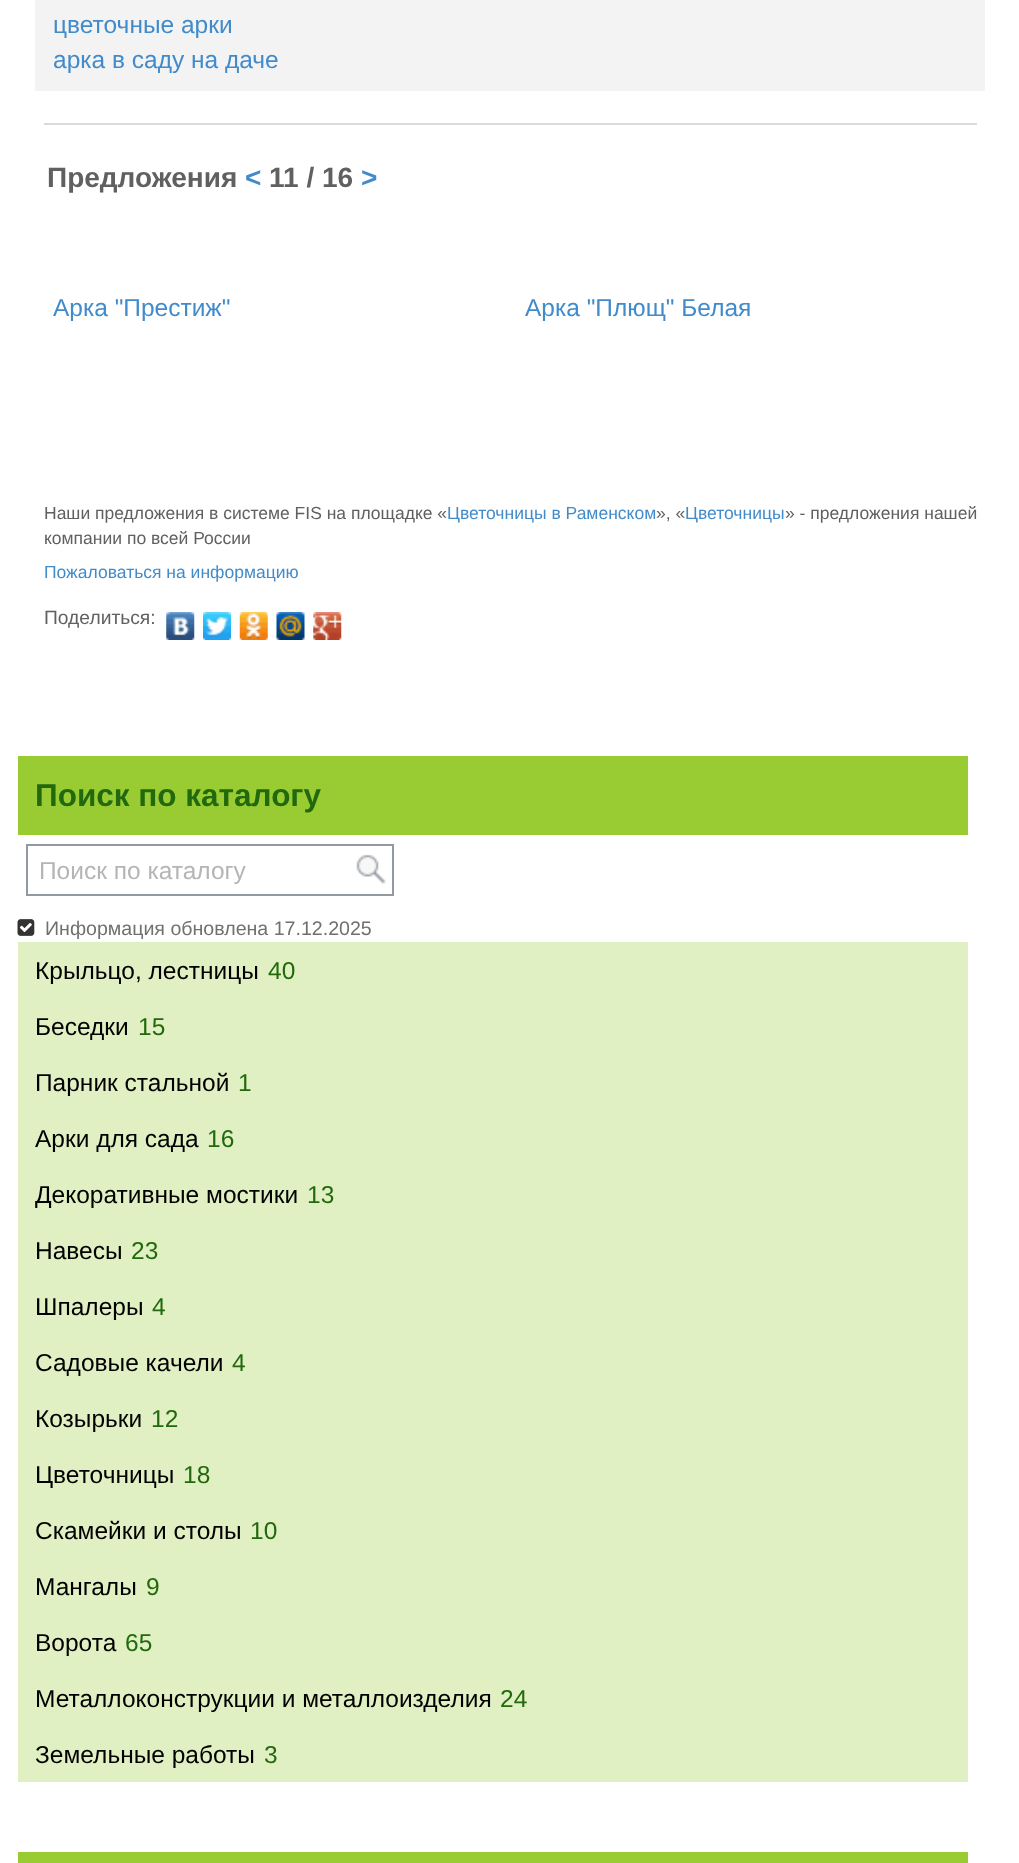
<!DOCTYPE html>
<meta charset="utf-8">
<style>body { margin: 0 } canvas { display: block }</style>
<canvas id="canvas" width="1019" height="1863"></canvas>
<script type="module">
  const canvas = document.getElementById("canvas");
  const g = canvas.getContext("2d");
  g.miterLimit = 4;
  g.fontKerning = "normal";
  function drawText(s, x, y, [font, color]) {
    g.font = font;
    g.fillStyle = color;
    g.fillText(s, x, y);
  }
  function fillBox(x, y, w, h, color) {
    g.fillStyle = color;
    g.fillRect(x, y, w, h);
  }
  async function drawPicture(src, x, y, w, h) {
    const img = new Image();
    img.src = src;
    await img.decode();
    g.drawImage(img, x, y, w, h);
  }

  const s1 = ["24.5px Liberation Sans", "#428BCA"];
  const s2 = ["bold 28px Liberation Sans", "#606060"];
  const s3 = ["bold 28px Liberation Sans", "#428BCA"];
  const s4 = ["17.5px Liberation Sans", "#606060"];
  const s5 = ["17.5px Liberation Sans", "#428BCA"];
  const s6 = ["19.25px Liberation Sans", "#606060"];
  const s7 = ["bold 31.5px Liberation Sans", "#22690D"];
  const s8 = ["24.5px Liberation Sans", "#B5B5B5"];
  const s9 = ["19.6px Liberation Sans", "#707070"];
  const s10 = ["24.5px Liberation Sans", "#000000"];
  const s11 = ["24.5px Liberation Sans", "#22690D"];

  fillBox(0, 0, 1019, 1863, "#FFFFFF");
  fillBox(35, 0, 950, 91, "#F3F3F3");
  drawText("цветочные арки", 53, 33, s1);
  drawText("арка в саду на даче", 53, 68, s1);
  fillBox(44, 123, 933, 2, "#DADADA");
  drawText("Предложения", 47, 187, s2);
  drawText("<", 245, 187, s3);
  drawText("11 / 16", 269, 187, s2);
  drawText(">", 361, 187, s3);
  drawText("Арка \"Престиж\"", 53, 316, s1);
  drawText("Арка \"Плющ\" Белая", 525, 316, s1);
  drawText("Наши предложения в системе FIS на площадке «", 44, 519, s4);
  drawText("Цветочницы в Раменском", 447, 519, s5);
  drawText("», «", 656, 519, s4);
  drawText("Цветочницы", 685, 519, s5);
  drawText("» - предложения нашей", 785, 519, s4);
  drawText("компании по всей России", 44, 544, s4);
  drawText("Пожаловаться на информацию", 44, 578, s5);
  drawText("Поделиться:", 44, 624, s6);
  await drawPicture("pic1.png", 166, 612, 29, 28);
  await drawPicture("pic2.png", 203, 612, 28, 28);
  await drawPicture("pic3.png", 239, 612, 29, 28);
  await drawPicture("pic4.png", 276, 612, 29, 28);
  await drawPicture("pic5.png", 313, 612, 29, 28);
  fillBox(18, 756, 950, 79, "#99CC33");
  drawText("Поиск по каталогу", 35, 806, s7);
  await drawPicture("pic6.png", 356, 854, 30, 30);
  g.strokeStyle = "#9399A2";
  g.lineWidth = 2;
  g.strokeRect(27, 845, 366, 50);
  drawText("Поиск по каталогу", 39, 879, s8);
  await drawPicture("pic7.png", 17, 919, 18, 17);
  drawText("Информация обновлена 17.12.2025", 45, 935, s9);
  fillBox(18, 942, 950, 840, "#E1F0C2");
  drawText("Крыльцо, лестницы", 35, 979, s10);
  drawText("40", 268, 979, s11);
  drawText("Беседки", 35, 1035, s10);
  drawText("15", 138, 1035, s11);
  drawText("Парник стальной", 35, 1091, s10);
  drawText("1", 238, 1091, s11);
  drawText("Арки для сада", 35, 1147, s10);
  drawText("16", 207, 1147, s11);
  drawText("Декоративные мостики", 35, 1203, s10);
  drawText("13", 307, 1203, s11);
  drawText("Навесы", 35, 1259, s10);
  drawText("23", 131, 1259, s11);
  drawText("Шпалеры", 35, 1315, s10);
  drawText("4", 152, 1315, s11);
  drawText("Садовые качели", 35, 1371, s10);
  drawText("4", 232, 1371, s11);
  drawText("Козырьки", 35, 1427, s10);
  drawText("12", 151, 1427, s11);
  drawText("Цветочницы", 35, 1483, s10);
  drawText("18", 183, 1483, s11);
  drawText("Скамейки и столы", 35, 1539, s10);
  drawText("10", 250, 1539, s11);
  drawText("Мангалы", 35, 1595, s10);
  drawText("9", 146, 1595, s11);
  drawText("Ворота", 35, 1651, s10);
  drawText("65", 125, 1651, s11);
  drawText("Металлоконструкции и металлоизделия", 35, 1707, s10);
  drawText("24", 500, 1707, s11);
  drawText("Земельные работы", 35, 1763, s10);
  drawText("3", 264, 1763, s11);
  fillBox(18, 1852, 950, 11, "#99CC33");
</script>
